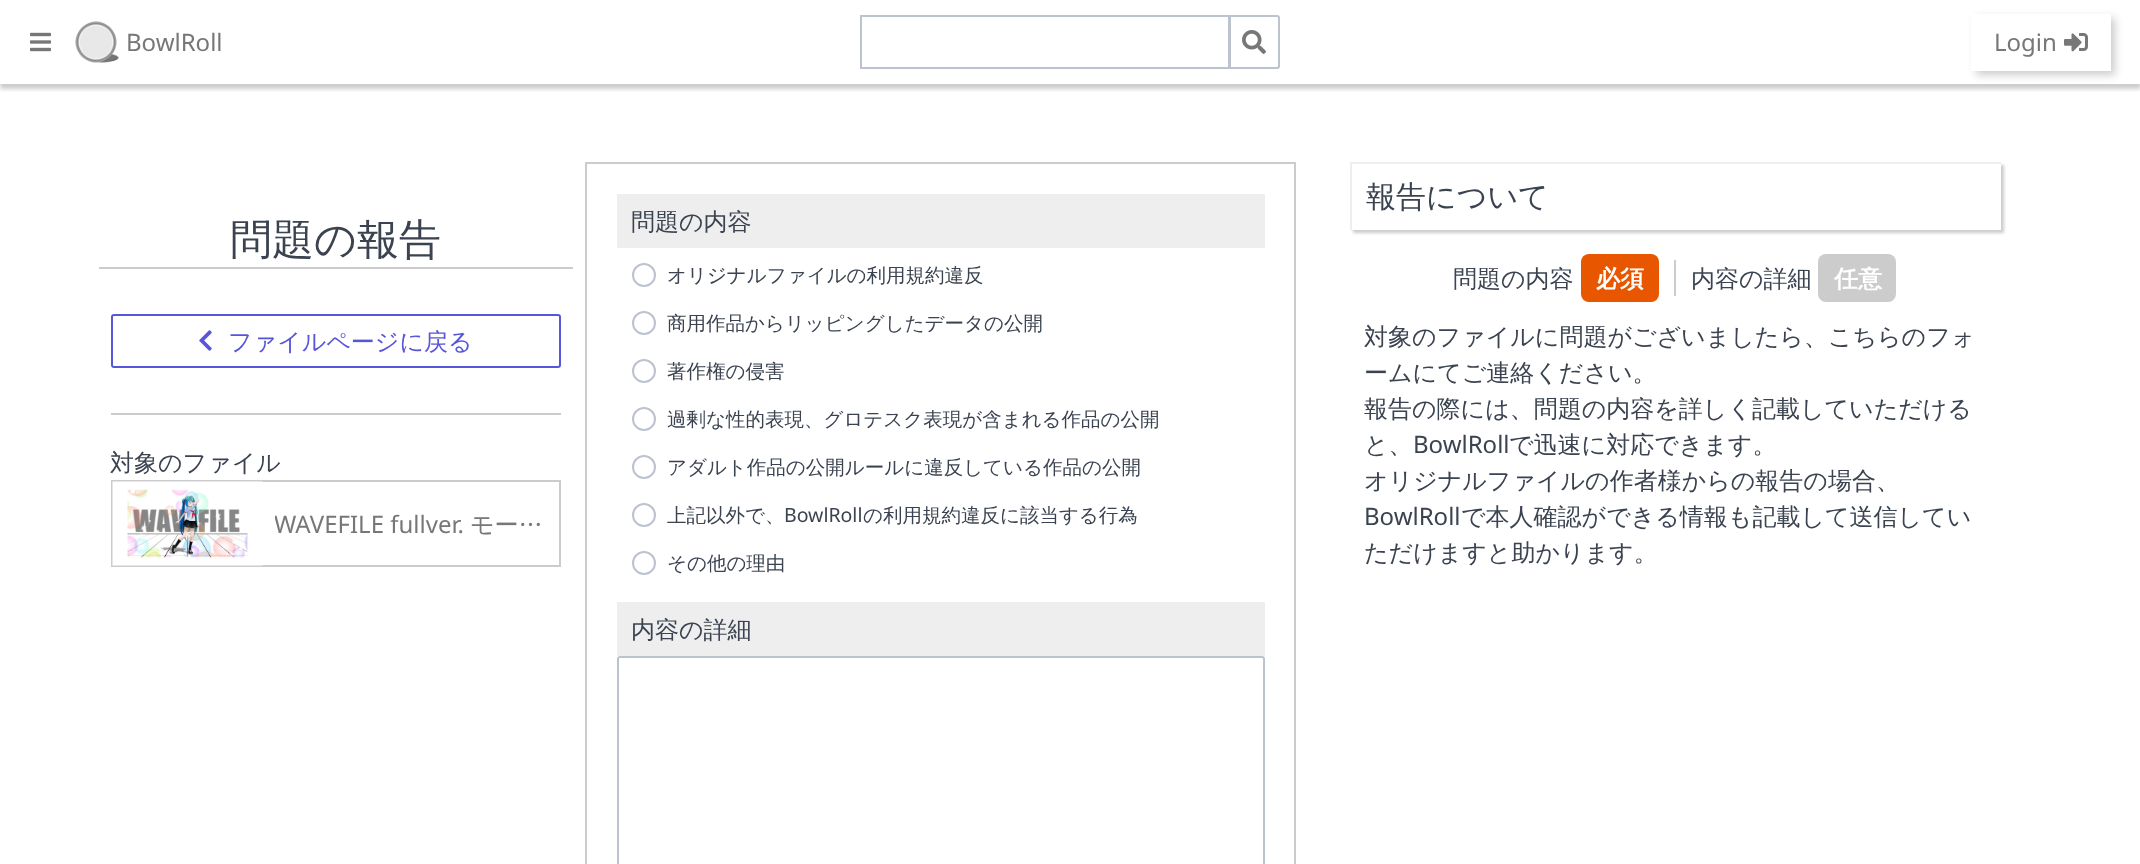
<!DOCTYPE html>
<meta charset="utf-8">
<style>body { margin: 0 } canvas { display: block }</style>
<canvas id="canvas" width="2140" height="864"></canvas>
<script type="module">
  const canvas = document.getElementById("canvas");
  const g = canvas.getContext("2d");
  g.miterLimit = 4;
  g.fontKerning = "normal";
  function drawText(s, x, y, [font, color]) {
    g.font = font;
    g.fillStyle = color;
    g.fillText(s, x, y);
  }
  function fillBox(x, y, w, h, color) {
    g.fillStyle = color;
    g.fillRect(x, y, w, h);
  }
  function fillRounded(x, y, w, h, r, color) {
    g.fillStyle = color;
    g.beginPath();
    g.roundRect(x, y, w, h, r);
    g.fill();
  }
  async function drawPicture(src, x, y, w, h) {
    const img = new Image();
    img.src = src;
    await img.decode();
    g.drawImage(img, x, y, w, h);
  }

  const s1 = ["24px Noto Sans", "#777777"];
  const s2 = ["500 42px WenQuanYi Zen Hei", "#3B4351"];
  const s3 = ["500 24px WenQuanYi Zen Hei", "#5755D9"];
  const s4 = ["500 24px WenQuanYi Zen Hei", "#3B4351"];
  const s5 = ["500 24px WenQuanYi Zen Hei", "#777777"];
  const s6 = ["500 19.5px WenQuanYi Zen Hei", "#3B4351"];
  const s7 = ["19.5px Noto Sans", "#3B4351"];
  const s8 = ["500 30px WenQuanYi Zen Hei", "#3B4351"];
  const s9 = ["bold 24px WenQuanYi Zen Hei", "#FFFFFF"];
  const s10 = ["24px Noto Sans", "#3B4351"];

  fillBox(0, 0, 2140, 864, "#FFFFFF");
  g.save();
  g.beginPath();
  g.rect(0, 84, 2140, 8);
  g.clip();
  g.fillStyle = "rgba(0, 0, 0, 0.2)";
  g.filter = "blur(2px)";
  g.beginPath();
  g.rect(0, 5, 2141, 84);
  g.fill();
  g.filter = "none";
  g.restore();
  await drawPicture("pic1.png", 30, 32, 21, 20);
  await drawPicture("pic2.png", 75, 21, 44, 42);
  drawText("BowlRoll", 126, 51, s1);
  g.strokeStyle = "#BCC3CE";
  g.lineWidth = 2;
  g.strokeRect(861, 16, 368, 52);
  g.fillStyle = "#FFFFFF";
  g.beginPath();
  g.roundRect(1230, 16, 49, 52, [0, 2, 2, 0]);
  g.fill();
  g.stroke();
  await drawPicture("pic3.png", 1242, 30, 24, 24);
  g.save();
  g.beginPath();
  g.moveTo(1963, 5);
  g.lineTo(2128, 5);
  g.lineTo(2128, 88);
  g.lineTo(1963, 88);
  g.closePath();
  g.moveTo(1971, 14);
  g.lineTo(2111, 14);
  g.lineTo(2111, 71);
  g.lineTo(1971, 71);
  g.closePath();
  g.clip("evenodd");
  g.fillStyle = "rgba(0, 0, 0, 0.2)";
  g.filter = "blur(4px)";
  g.beginPath();
  g.rect(1976, 18, 139, 57);
  g.fill();
  g.filter = "none";
  g.restore();
  drawText("Login", 1994, 51, s1);
  await drawPicture("pic4.png", 2064, 33, 24, 19);
  fillBox(99, 267, 474, 2, "#CCCCCC");
  drawText("問題の報告", 230, 254, s2);
  g.beginPath();
  g.roundRect(112, 315, 448, 52, 2);
  g.strokeStyle = "#5755D9";
  g.stroke();
  await drawPicture("pic5.png", 199, 330, 13, 21);
  drawText("ファイルページに戻る", 228, 350, s3);
  fillBox(111, 413, 450, 2, "#CCCCCC");
  drawText("対象のファイル", 110, 471, s4);
  g.strokeStyle = "#CCCCCC";
  g.strokeRect(112, 481, 448, 85);
  await drawPicture("pic6.png", 112, 481, 151, 85);
  g.save();
  g.beginPath();
  g.rect(275, 506, 285, 36);
  g.clip();
  drawText("WAVEFILE fullver.", 274, 533, s1);
  g.restore();
  drawText("モー…", 470, 533, s5);
  g.strokeRect(586, 163, 709, 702);
  fillBox(617, 194, 648, 54, "#EEEEEE");
  drawText("問題の内容", 631, 230, s4);
  g.beginPath();
  g.arc(644, 275, 11, 0, Math.PI * 2);
  g.strokeStyle = "#BCC3CE";
  g.stroke();
  drawText("オリジナルファイルの利用規約違反", 667, 282, s6);
  g.beginPath();
  g.arc(644, 323, 11, 0, Math.PI * 2);
  g.stroke();
  drawText("商用作品からリッピングしたデータの公開", 667, 330, s6);
  g.beginPath();
  g.arc(644, 371, 11, 0, Math.PI * 2);
  g.stroke();
  drawText("著作権の侵害", 667, 378, s6);
  g.beginPath();
  g.arc(644, 419, 11, 0, Math.PI * 2);
  g.stroke();
  drawText("過剰な性的表現、グロテスク表現が含まれる作品の公開", 667, 426, s6);
  g.beginPath();
  g.arc(644, 467, 11, 0, Math.PI * 2);
  g.stroke();
  drawText("アダルト作品の公開ルールに違反している作品の公開", 667, 474, s6);
  g.beginPath();
  g.arc(644, 515, 11, 0, Math.PI * 2);
  g.stroke();
  drawText("上記以外で、", 667, 522, s6);
  drawText("BowlRoll", 784, 522, s7);
  drawText("の利用規約違反に該当する行為", 863, 522, s6);
  g.beginPath();
  g.arc(644, 563, 11, 0, Math.PI * 2);
  g.stroke();
  drawText("その他の理由", 667, 570, s6);
  fillBox(617, 602, 648, 54, "#EEEEEE");
  drawText("内容の詳細", 631, 638, s4);
  g.beginPath();
  g.roundRect(618, 657, 646, 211, 2);
  g.stroke();
  g.fillStyle = "rgba(0, 0, 0, 0.2)";
  g.filter = "blur(1.5px)";
  g.beginPath();
  g.rect(1353, 165, 651, 68);
  g.fill();
  g.filter = "none";
  fillBox(1352, 164, 649, 66, "#FFFFFF");
  fillBox(1350, 162, 651, 2, "#EEEEEE");
  fillBox(1350, 162, 2, 68, "#EEEEEE");
  drawText("報告について", 1366, 207, s8);
  drawText("問題の内容", 1453, 287, s4);
  fillRounded(1581, 254, 78, 48, 8, "#E85600");
  drawText("必須", 1596, 287, s9);
  fillBox(1674, 260, 2, 36, "#CCCCCC");
  drawText("内容の詳細", 1691, 287, s4);
  fillRounded(1818, 254, 78, 48, 8, "#CCCCCC");
  drawText("任意", 1834, 287, s9);
  drawText("対象のファイルに問題がございましたら、こちらのフォ", 1364, 345, s4);
  drawText("ームにてご連絡ください。", 1364, 381, s4);
  drawText("報告の際には、問題の内容を詳しく記載していただける", 1364, 417, s4);
  drawText("と、", 1364, 453, s4);
  drawText("BowlRoll", 1413, 453, s10);
  drawText("で迅速に対応できます。", 1509, 453, s4);
  drawText("オリジナルファイルの作者様からの報告の場合、", 1364, 489, s4);
  drawText("BowlRoll", 1364, 525, s10);
  drawText("で本人確認ができる情報も記載して送信してい", 1461, 525, s4);
  drawText("ただけますと助かります。", 1364, 561, s4);
</script>
